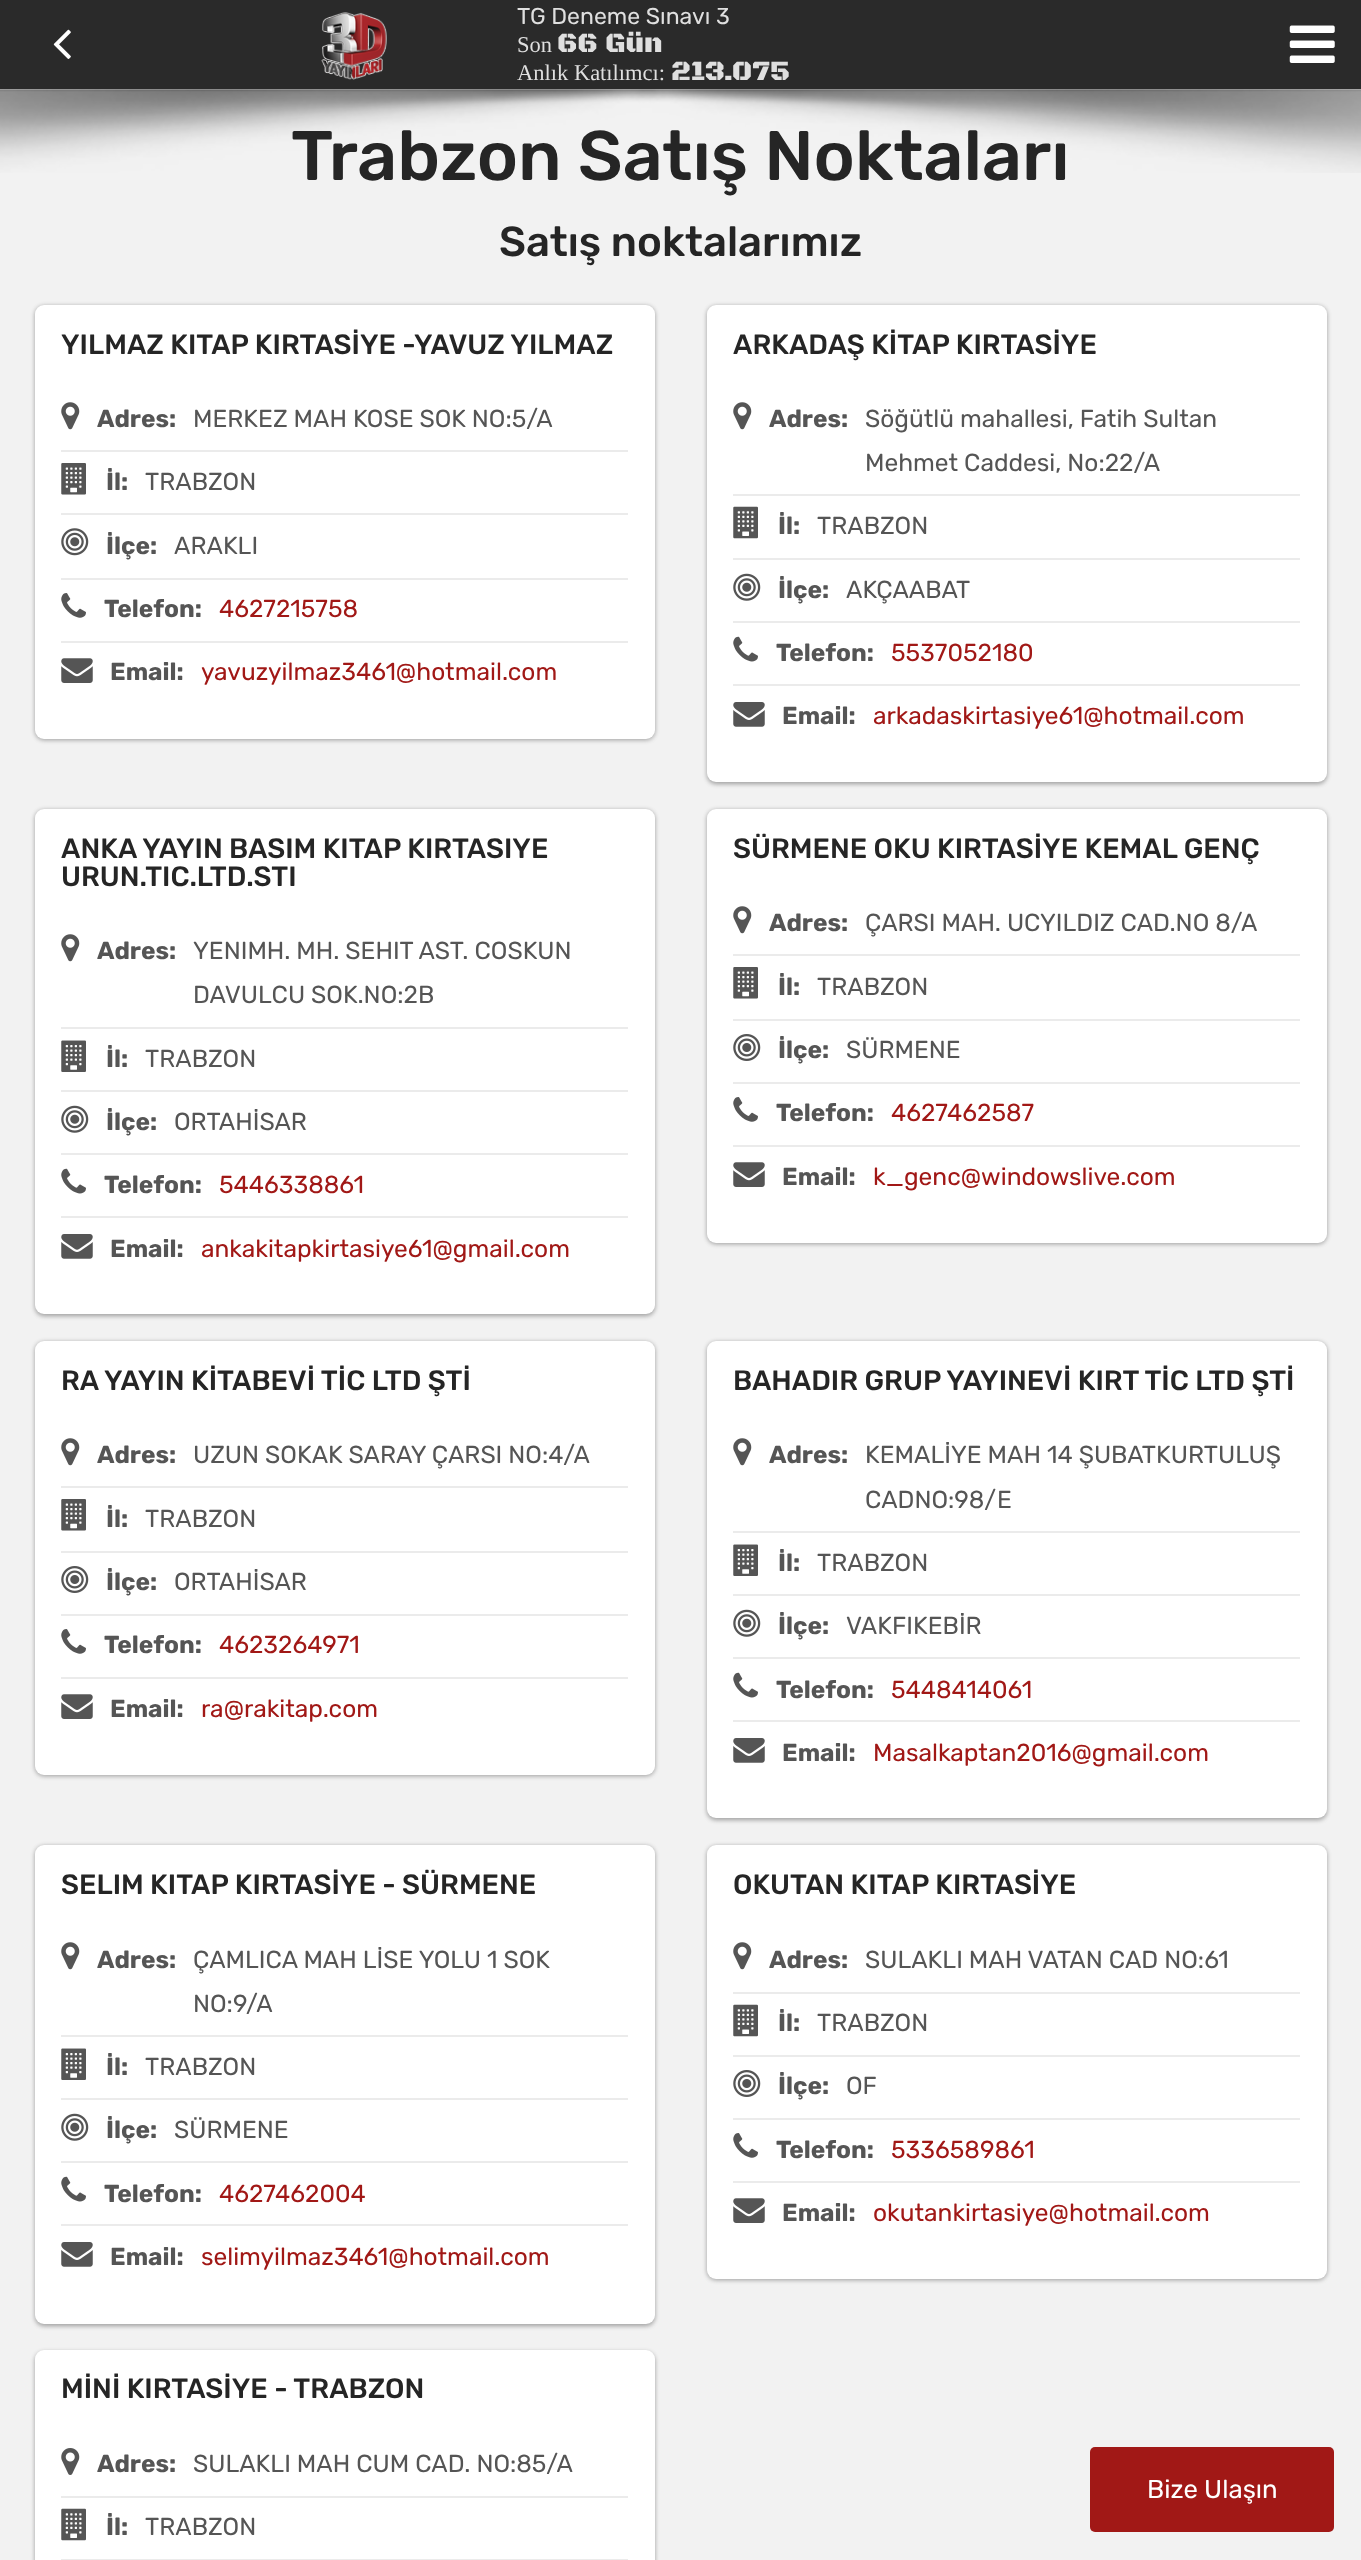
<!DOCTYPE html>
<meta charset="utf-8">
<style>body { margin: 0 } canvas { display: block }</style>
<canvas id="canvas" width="1361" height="2560"></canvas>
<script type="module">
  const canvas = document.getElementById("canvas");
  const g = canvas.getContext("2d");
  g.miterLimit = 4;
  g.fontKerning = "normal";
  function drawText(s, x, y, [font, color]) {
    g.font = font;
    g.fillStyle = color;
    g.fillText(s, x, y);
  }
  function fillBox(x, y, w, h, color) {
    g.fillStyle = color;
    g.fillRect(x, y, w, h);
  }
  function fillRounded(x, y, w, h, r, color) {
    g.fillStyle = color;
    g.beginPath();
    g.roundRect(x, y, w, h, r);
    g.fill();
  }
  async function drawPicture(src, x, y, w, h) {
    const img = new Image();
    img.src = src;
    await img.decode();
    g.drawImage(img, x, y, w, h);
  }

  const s1 = ["23px Rubik", "#DFDFDF"];
  const s2 = ["22.5px Liberation Serif", "#DFDFDF"];
  const s3 = ["900 28px Black Ops One", "#DFDFDF"];
  const s4 = ["500 70px Rubik", "#252525"];
  const s5 = ["500 42px Rubik", "#252525"];
  const s6 = ["500 28px Rubik", "#252525"];
  const s7 = ["bold 24.5px Rubik", "#555555"];
  const s8 = ["24.5px Rubik", "#555555"];
  const s9 = ["24.5px Rubik", "#A11816"];
  const s10 = ["25.75px Rubik", "#FFFFFF"];

  fillBox(0, 0, 1361, 2560, "#F2F2F2");
  fillBox(0, 0, 1361, 89, "#2A2A2A");
  await drawPicture("pic1.png", 53, 29, 18, 30);
  await drawPicture("pic2.png", 321, 12, 66, 68);
  drawText("TG Deneme Sınavı 3", 517, 24, s1);
  drawText("Son", 517, 52, s2);
  drawText("66 Gün", 557, 52, s3);
  drawText("Anlık Katılımcı:", 517, 80, s2);
  drawText("213.075", 671, 80, s3);
  await drawPicture("pic3.png", 1289, 25, 46, 38);
  await drawPicture("pic4.png", 0, 89, 1361, 84);
  drawText("Trabzon Satış Noktaları", 291, 180, s4);
  drawText("Satış noktalarımız", 499, 256, s5);
  g.fillStyle = "rgba(0, 0, 0, 0.24)";
  g.filter = "blur(2px)";
  g.beginPath();
  g.roundRect(35, 306, 620, 434, 9);
  g.fill();
  g.filter = "none";
  g.fillStyle = "rgba(0, 0, 0, 0.12)";
  g.filter = "blur(2.5px)";
  g.beginPath();
  g.roundRect(35, 306, 620, 434, 9);
  g.fill();
  g.filter = "none";
  fillRounded(35, 305, 620, 434, 9, "#FFFFFF");
  drawText("YILMAZ KITAP KIRTASİYE -YAVUZ YILMAZ", 61, 354, s6);
  fillBox(61, 450, 567, 2, "#EBEBEB");
  await drawPicture("pic5.png", 61, 402, 19, 28);
  drawText("Adres:", 97, 427, s7);
  drawText("MERKEZ MAH KOSE SOK NO:5/A", 193, 427, s8);
  fillBox(61, 513, 567, 2, "#EBEBEB");
  await drawPicture("pic6.png", 61, 463, 25, 32);
  drawText("İl:", 106, 490, s7);
  drawText("TRABZON", 145, 490, s8);
  fillBox(61, 578, 567, 2, "#EBEBEB");
  await drawPicture("pic7.png", 61, 528, 28, 28);
  drawText("İlçe:", 106, 554, s7);
  drawText("ARAKLI", 174, 554, s8);
  fillBox(61, 641, 567, 2, "#EBEBEB");
  await drawPicture("pic8.png", 61, 593, 25, 25);
  drawText("Telefon:", 104, 617, s7);
  drawText("4627215758", 219, 617, s9);
  await drawPicture("pic9.png", 61, 658, 32, 25);
  drawText("Email:", 110, 680, s7);
  drawText("yavuzyilmaz3461@hotmail.com", 201, 680, s9);
  g.fillStyle = "rgba(0, 0, 0, 0.24)";
  g.filter = "blur(2px)";
  g.beginPath();
  g.roundRect(707, 306, 620, 478, 9);
  g.fill();
  g.filter = "none";
  g.fillStyle = "rgba(0, 0, 0, 0.12)";
  g.filter = "blur(2.5px)";
  g.beginPath();
  g.roundRect(707, 306, 620, 478, 9);
  g.fill();
  g.filter = "none";
  fillRounded(707, 305, 620, 477, 9, "#FFFFFF");
  drawText("ARKADAŞ KİTAP KIRTASİYE", 733, 354, s6);
  fillBox(733, 494, 567, 2, "#EBEBEB");
  await drawPicture("pic5.png", 733, 402, 19, 28);
  drawText("Adres:", 769, 427, s7);
  drawText("Söğütlü mahallesi, Fatih Sultan", 865, 427, s8);
  drawText("Mehmet Caddesi, No:22/A", 865, 471, s8);
  fillBox(733, 558, 567, 2, "#EBEBEB");
  await drawPicture("pic10.png", 733, 506, 25, 33);
  drawText("İl:", 778, 534, s7);
  drawText("TRABZON", 817, 534, s8);
  fillBox(733, 621, 567, 2, "#EBEBEB");
  await drawPicture("pic11.png", 733, 573, 28, 28);
  drawText("İlçe:", 778, 598, s7);
  drawText("AKÇAABAT", 846, 598, s8);
  fillBox(733, 684, 567, 2, "#EBEBEB");
  await drawPicture("pic12.png", 733, 636, 25, 26);
  drawText("Telefon:", 776, 661, s7);
  drawText("5537052180", 891, 661, s9);
  await drawPicture("pic13.png", 733, 702, 32, 25);
  drawText("Email:", 782, 724, s7);
  drawText("arkadaskirtasiye61@hotmail.com", 873, 724, s9);
  g.fillStyle = "rgba(0, 0, 0, 0.24)";
  g.filter = "blur(2px)";
  g.beginPath();
  g.roundRect(35, 810, 620, 506, 9);
  g.fill();
  g.filter = "none";
  g.fillStyle = "rgba(0, 0, 0, 0.12)";
  g.filter = "blur(2.5px)";
  g.beginPath();
  g.roundRect(35, 810, 620, 506, 9);
  g.fill();
  g.filter = "none";
  fillRounded(35, 809, 620, 505, 9, "#FFFFFF");
  drawText("ANKA YAYIN BASIM KITAP KIRTASIYE", 61, 858, s6);
  drawText("URUN.TIC.LTD.STI", 61, 886, s6);
  fillBox(61, 1027, 567, 2, "#EBEBEB");
  await drawPicture("pic14.png", 61, 934, 19, 28);
  drawText("Adres:", 97, 959, s7);
  drawText("YENIMH. MH. SEHIT AST. COSKUN", 193, 959, s8);
  drawText("DAVULCU SOK.NO:2B", 193, 1003, s8);
  fillBox(61, 1090, 567, 2, "#EBEBEB");
  await drawPicture("pic15.png", 61, 1040, 25, 32);
  drawText("İl:", 106, 1067, s7);
  drawText("TRABZON", 145, 1067, s8);
  fillBox(61, 1153, 567, 2, "#EBEBEB");
  await drawPicture("pic11.png", 61, 1105, 28, 28);
  drawText("İlçe:", 106, 1130, s7);
  drawText("ORTAHİSAR", 174, 1130, s8);
  fillBox(61, 1216, 567, 2, "#EBEBEB");
  await drawPicture("pic16.png", 61, 1168, 25, 26);
  drawText("Telefon:", 104, 1193, s7);
  drawText("5446338861", 219, 1193, s9);
  await drawPicture("pic17.png", 61, 1234, 32, 25);
  drawText("Email:", 110, 1257, s7);
  drawText("ankakitapkirtasiye61@gmail.com", 201, 1257, s9);
  g.fillStyle = "rgba(0, 0, 0, 0.24)";
  g.filter = "blur(2px)";
  g.beginPath();
  g.roundRect(707, 810, 620, 434, 9);
  g.fill();
  g.filter = "none";
  g.fillStyle = "rgba(0, 0, 0, 0.12)";
  g.filter = "blur(2.5px)";
  g.beginPath();
  g.roundRect(707, 810, 620, 434, 9);
  g.fill();
  g.filter = "none";
  fillRounded(707, 809, 620, 434, 9, "#FFFFFF");
  drawText("SÜRMENE OKU KIRTASİYE KEMAL GENÇ", 733, 858, s6);
  fillBox(733, 954, 567, 2, "#EBEBEB");
  await drawPicture("pic14.png", 733, 906, 19, 28);
  drawText("Adres:", 769, 931, s7);
  drawText("ÇARSI MAH. UCYILDIZ CAD.NO 8/A", 865, 931, s8);
  fillBox(733, 1019, 567, 2, "#EBEBEB");
  await drawPicture("pic18.png", 733, 967, 25, 32);
  drawText("İl:", 778, 995, s7);
  drawText("TRABZON", 817, 995, s8);
  fillBox(733, 1082, 567, 2, "#EBEBEB");
  await drawPicture("pic19.png", 733, 1034, 28, 27);
  drawText("İlçe:", 778, 1058, s7);
  drawText("SÜRMENE", 846, 1058, s8);
  fillBox(733, 1145, 567, 2, "#EBEBEB");
  await drawPicture("pic20.png", 733, 1097, 25, 25);
  drawText("Telefon:", 776, 1121, s7);
  drawText("4627462587", 891, 1121, s9);
  await drawPicture("pic21.png", 733, 1162, 32, 25);
  drawText("Email:", 782, 1185, s7);
  drawText("k_genc@windowslive.com", 873, 1185, s9);
  g.fillStyle = "rgba(0, 0, 0, 0.24)";
  g.filter = "blur(2px)";
  g.beginPath();
  g.roundRect(35, 1342, 620, 434, 9);
  g.fill();
  g.filter = "none";
  g.fillStyle = "rgba(0, 0, 0, 0.12)";
  g.filter = "blur(2.5px)";
  g.beginPath();
  g.roundRect(35, 1342, 620, 434, 9);
  g.fill();
  g.filter = "none";
  fillRounded(35, 1341, 620, 434, 9, "#FFFFFF");
  drawText("RA YAYIN KİTABEVİ TİC LTD ŞTİ", 61, 1390, s6);
  fillBox(61, 1486, 567, 2, "#EBEBEB");
  await drawPicture("pic5.png", 61, 1438, 19, 28);
  drawText("Adres:", 97, 1463, s7);
  drawText("UZUN SOKAK SARAY ÇARSI NO:4/A", 193, 1463, s8);
  fillBox(61, 1551, 567, 2, "#EBEBEB");
  await drawPicture("pic22.png", 61, 1499, 25, 32);
  drawText("İl:", 106, 1527, s7);
  drawText("TRABZON", 145, 1527, s8);
  fillBox(61, 1614, 567, 2, "#EBEBEB");
  await drawPicture("pic19.png", 61, 1566, 28, 27);
  drawText("İlçe:", 106, 1590, s7);
  drawText("ORTAHİSAR", 174, 1590, s8);
  fillBox(61, 1677, 567, 2, "#EBEBEB");
  await drawPicture("pic8.png", 61, 1629, 25, 25);
  drawText("Telefon:", 104, 1653, s7);
  drawText("4623264971", 219, 1653, s9);
  await drawPicture("pic9.png", 61, 1694, 32, 25);
  drawText("Email:", 110, 1717, s7);
  drawText("ra@rakitap.com", 201, 1717, s9);
  g.fillStyle = "rgba(0, 0, 0, 0.24)";
  g.filter = "blur(2px)";
  g.beginPath();
  g.roundRect(707, 1342, 620, 478, 9);
  g.fill();
  g.filter = "none";
  g.fillStyle = "rgba(0, 0, 0, 0.12)";
  g.filter = "blur(2.5px)";
  g.beginPath();
  g.roundRect(707, 1342, 620, 478, 9);
  g.fill();
  g.filter = "none";
  fillRounded(707, 1341, 620, 477, 9, "#FFFFFF");
  drawText("BAHADIR GRUP YAYINEVİ KIRT TİC LTD ŞTİ", 733, 1390, s6);
  fillBox(733, 1531, 567, 2, "#EBEBEB");
  await drawPicture("pic5.png", 733, 1438, 19, 28);
  drawText("Adres:", 769, 1463, s7);
  drawText("KEMALİYE MAH 14 ŞUBATKURTULUŞ", 865, 1463, s8);
  drawText("CADNO:98/E", 865, 1508, s8);
  fillBox(733, 1594, 567, 2, "#EBEBEB");
  await drawPicture("pic15.png", 733, 1544, 25, 32);
  drawText("İl:", 778, 1571, s7);
  drawText("TRABZON", 817, 1571, s8);
  fillBox(733, 1657, 567, 2, "#EBEBEB");
  await drawPicture("pic11.png", 733, 1609, 28, 28);
  drawText("İlçe:", 778, 1634, s7);
  drawText("VAKFIKEBİR", 846, 1634, s8);
  fillBox(733, 1720, 567, 2, "#EBEBEB");
  await drawPicture("pic12.png", 733, 1672, 25, 26);
  drawText("Telefon:", 776, 1698, s7);
  drawText("5448414061", 891, 1698, s9);
  await drawPicture("pic13.png", 733, 1738, 32, 25);
  drawText("Email:", 782, 1761, s7);
  drawText("Masalkaptan2016@gmail.com", 873, 1761, s9);
  g.fillStyle = "rgba(0, 0, 0, 0.24)";
  g.filter = "blur(2px)";
  g.beginPath();
  g.roundRect(35, 1846, 620, 480, 9);
  g.fill();
  g.filter = "none";
  g.fillStyle = "rgba(0, 0, 0, 0.12)";
  g.filter = "blur(2.5px)";
  g.beginPath();
  g.roundRect(35, 1846, 620, 480, 9);
  g.fill();
  g.filter = "none";
  fillRounded(35, 1845, 620, 479, 9, "#FFFFFF");
  drawText("SELIM KITAP KIRTASİYE - SÜRMENE", 61, 1894, s6);
  fillBox(61, 2035, 567, 2, "#EBEBEB");
  await drawPicture("pic23.png", 61, 1942, 19, 28);
  drawText("Adres:", 97, 1968, s7);
  drawText("ÇAMLICA MAH LİSE YOLU 1 SOK", 193, 1968, s8);
  drawText("NO:9/A", 193, 2012, s8);
  fillBox(61, 2098, 567, 2, "#EBEBEB");
  await drawPicture("pic15.png", 61, 2048, 25, 32);
  drawText("İl:", 106, 2075, s7);
  drawText("TRABZON", 145, 2075, s8);
  fillBox(61, 2161, 567, 2, "#EBEBEB");
  await drawPicture("pic11.png", 61, 2113, 28, 28);
  drawText("İlçe:", 106, 2138, s7);
  drawText("SÜRMENE", 174, 2138, s8);
  fillBox(61, 2224, 567, 2, "#EBEBEB");
  await drawPicture("pic16.png", 61, 2176, 25, 26);
  drawText("Telefon:", 104, 2202, s7);
  drawText("4627462004", 219, 2202, s9);
  await drawPicture("pic17.png", 61, 2242, 32, 25);
  drawText("Email:", 110, 2265, s7);
  drawText("selimyilmaz3461@hotmail.com", 201, 2265, s9);
  g.fillStyle = "rgba(0, 0, 0, 0.24)";
  g.filter = "blur(2px)";
  g.beginPath();
  g.roundRect(707, 1846, 620, 434, 9);
  g.fill();
  g.filter = "none";
  g.fillStyle = "rgba(0, 0, 0, 0.12)";
  g.filter = "blur(2.5px)";
  g.beginPath();
  g.roundRect(707, 1846, 620, 434, 9);
  g.fill();
  g.filter = "none";
  fillRounded(707, 1845, 620, 434, 9, "#FFFFFF");
  drawText("OKUTAN KITAP KIRTASİYE", 733, 1894, s6);
  fillBox(733, 1992, 567, 2, "#EBEBEB");
  await drawPicture("pic23.png", 733, 1942, 19, 28);
  drawText("Adres:", 769, 1968, s7);
  drawText("SULAKLI MAH VATAN CAD NO:61", 865, 1968, s8);
  fillBox(733, 2055, 567, 2, "#EBEBEB");
  await drawPicture("pic24.png", 733, 2004, 25, 33);
  drawText("İl:", 778, 2031, s7);
  drawText("TRABZON", 817, 2031, s8);
  fillBox(733, 2118, 567, 2, "#EBEBEB");
  await drawPicture("pic19.png", 733, 2070, 28, 27);
  drawText("İlçe:", 778, 2094, s7);
  drawText("OF", 846, 2094, s8);
  fillBox(733, 2181, 567, 2, "#EBEBEB");
  await drawPicture("pic20.png", 733, 2133, 25, 25);
  drawText("Telefon:", 776, 2158, s7);
  drawText("5336589861", 891, 2158, s9);
  await drawPicture("pic21.png", 733, 2198, 32, 25);
  drawText("Email:", 782, 2221, s7);
  drawText("okutankirtasiye@hotmail.com", 873, 2221, s9);
  g.fillStyle = "rgba(0, 0, 0, 0.24)";
  g.filter = "blur(2px)";
  g.beginPath();
  g.roundRect(35, 2352, 620, 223, 9);
  g.fill();
  g.filter = "none";
  g.fillStyle = "rgba(0, 0, 0, 0.12)";
  g.filter = "blur(2.5px)";
  g.beginPath();
  g.roundRect(35, 2352, 620, 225, 9);
  g.fill();
  g.filter = "none";
  fillRounded(35, 2350, 620, 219, 9, "#FFFFFF");
  drawText("MİNİ KIRTASİYE - TRABZON", 61, 2398, s6);
  fillBox(61, 2496, 567, 2, "#EBEBEB");
  await drawPicture("pic25.png", 61, 2448, 19, 27);
  drawText("Adres:", 97, 2472, s7);
  drawText("SULAKLI MAH CUM CAD. NO:85/A", 193, 2472, s8);
  fillBox(61, 2559, 567, 1, "#EBEBEB");
  await drawPicture("pic10.png", 61, 2508, 25, 33);
  drawText("İl:", 106, 2535, s7);
  drawText("TRABZON", 145, 2535, s8);
  fillRounded(1090, 2447, 244, 85, 5, "#A11816");
  drawText("Bize Ulaşın", 1147, 2498, s10);
</script>
